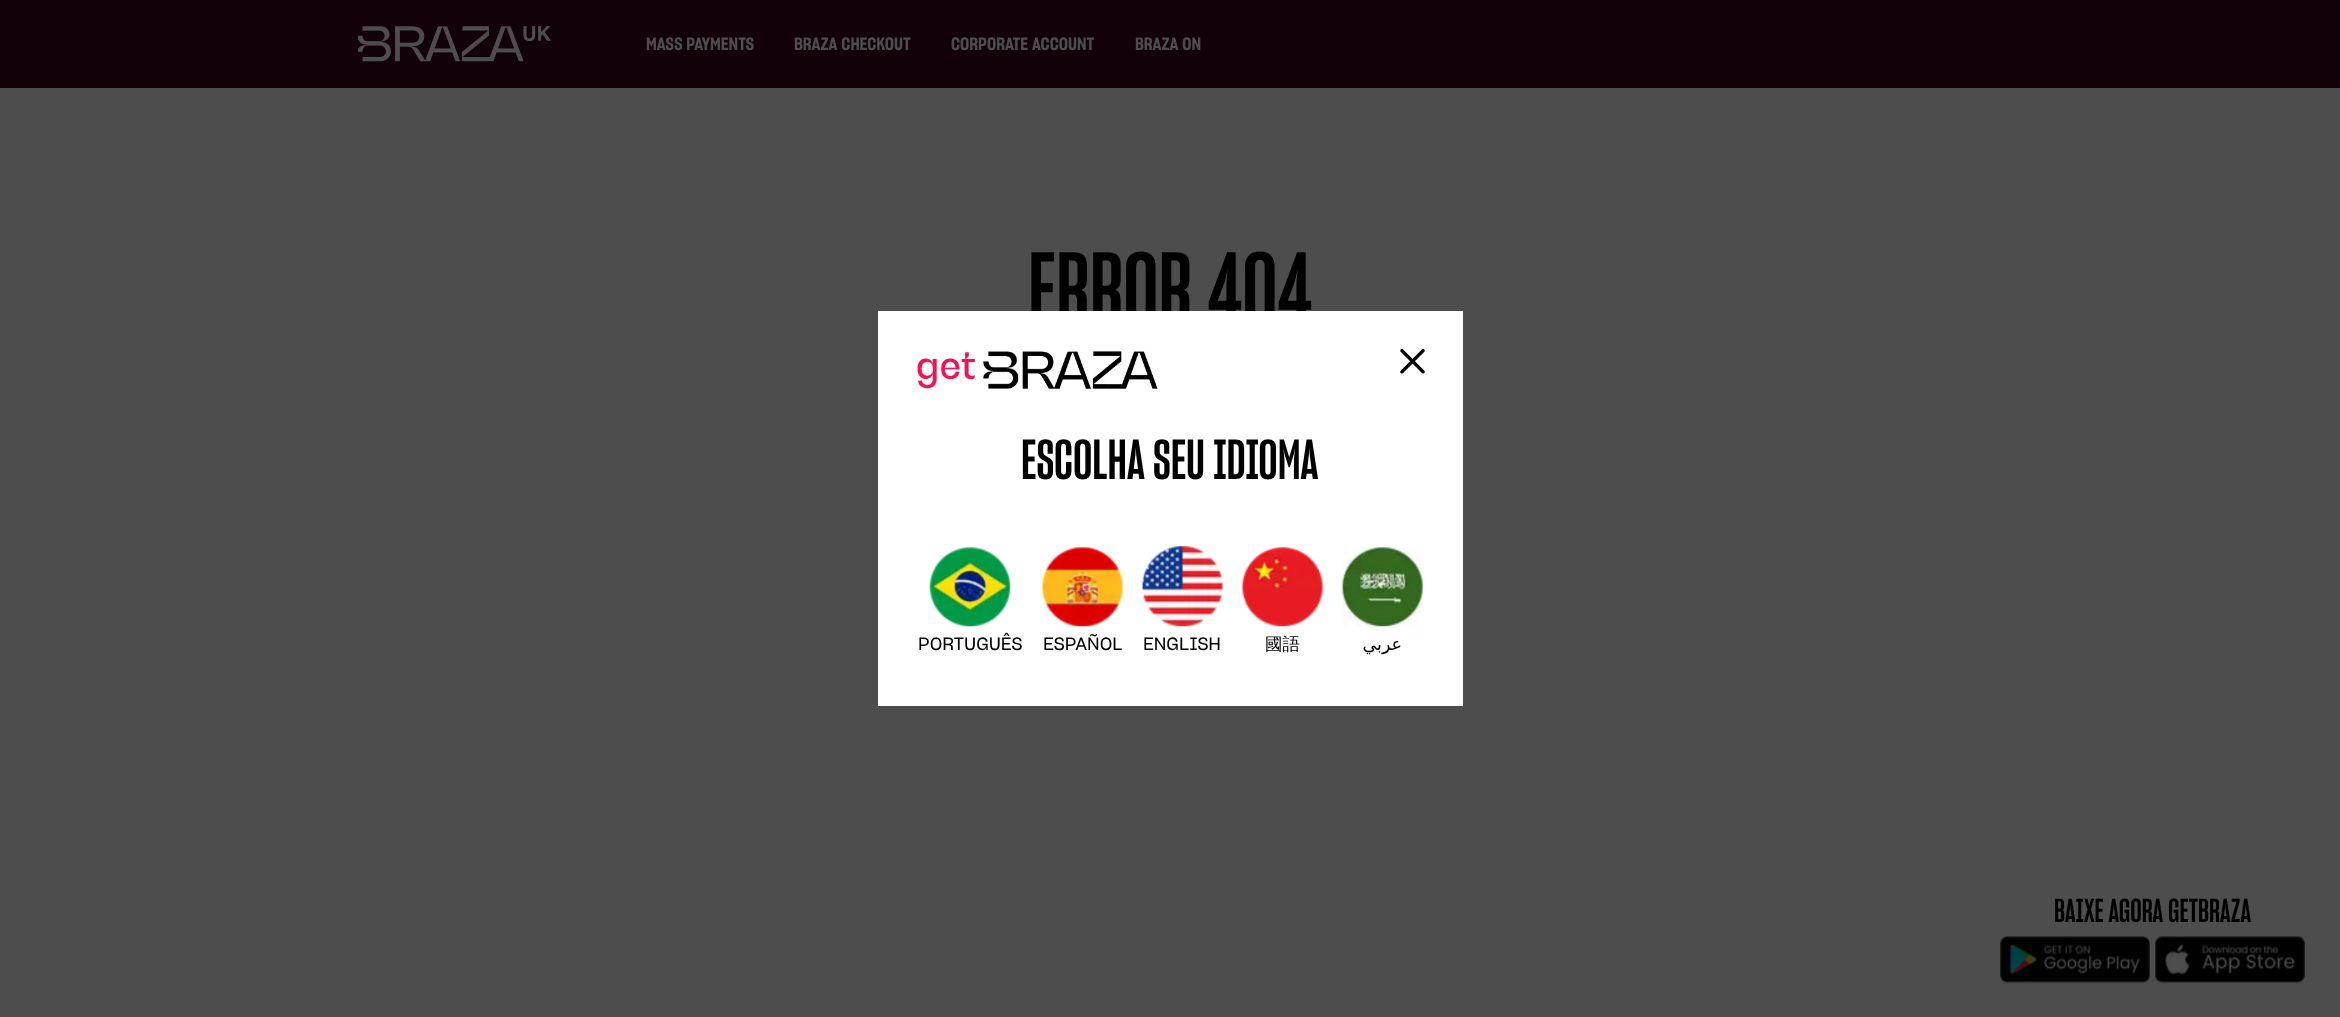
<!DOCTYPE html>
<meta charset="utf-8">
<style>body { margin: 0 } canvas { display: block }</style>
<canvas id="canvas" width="2340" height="1017"></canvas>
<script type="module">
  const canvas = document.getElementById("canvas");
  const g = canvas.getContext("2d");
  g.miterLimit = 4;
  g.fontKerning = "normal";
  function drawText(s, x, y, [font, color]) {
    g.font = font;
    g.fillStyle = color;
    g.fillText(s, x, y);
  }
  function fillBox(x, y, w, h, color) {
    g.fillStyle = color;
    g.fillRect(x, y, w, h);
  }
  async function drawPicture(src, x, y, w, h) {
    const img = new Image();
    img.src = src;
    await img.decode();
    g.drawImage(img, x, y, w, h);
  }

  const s1 = ["bold 17.5px 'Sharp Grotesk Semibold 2'", "#4D4D4D"];
  const s2 = ["bold 100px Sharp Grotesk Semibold", "#010101"];
  const s3 = ["bold 55px Sharp Grotesk Semibold", "#010101"];
  const s4 = ["17.5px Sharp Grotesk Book", "#010101"];
  const s5 = ["500 17.5px WenQuanYi Zen Hei", "#010101"];
  const s6 = ["17.5px DejaVu Sans", "#010101"];
  const s7 = ["bold 32.5px Sharp Grotesk Semibold", "#010101"];

  fillBox(0, 0, 2340, 1017, "#4D4D4D");
  fillBox(0, 0, 2340, 88, "#130109");
  await drawPicture("pic1.png", 358, 26, 193, 36);
  drawText("MASS PAYMENTS", 646, 50, s1);
  drawText("BRAZA CHECKOUT", 794, 50, s1);
  drawText("CORPORATE ACCOUNT", 951, 50, s1);
  drawText("BRAZA ON", 1135, 50, s1);
  drawText("ERROR 404", 1028, 324, s2);
  fillBox(878, 311, 585, 395, "#FFFFFF");
  await drawPicture("pic2.png", 917, 351, 241, 38);
  await drawPicture("pic3.png", 1400, 349, 25, 25);
  drawText("ESCOLHA SEU IDIOMA", 1021, 479, s3);
  await drawPicture("pic4.png", 929, 547, 82, 80);
  drawText("PORTUGUÊS", 918, 650, s4);
  await drawPicture("pic5.png", 1041, 547, 82, 80);
  drawText("ESPAÑOL", 1043, 650, s4);
  await drawPicture("pic6.png", 1141, 546, 82, 81);
  drawText("ENGLISH", 1143, 650, s4);
  await drawPicture("pic7.png", 1241, 547, 82, 80);
  drawText("國語", 1265, 650, s5);
  await drawPicture("pic8.png", 1341, 547, 82, 80);
  g.direction = "rtl";
  drawText("عربي", 1402, 650, s6);
  g.direction = "ltr";
  drawText("BAIXE AGORA GETBRAZA", 2054, 922, s7);
  await drawPicture("pic9.png", 2000, 936, 150, 48);
  await drawPicture("pic10.png", 2155, 936, 150, 48);
</script>
